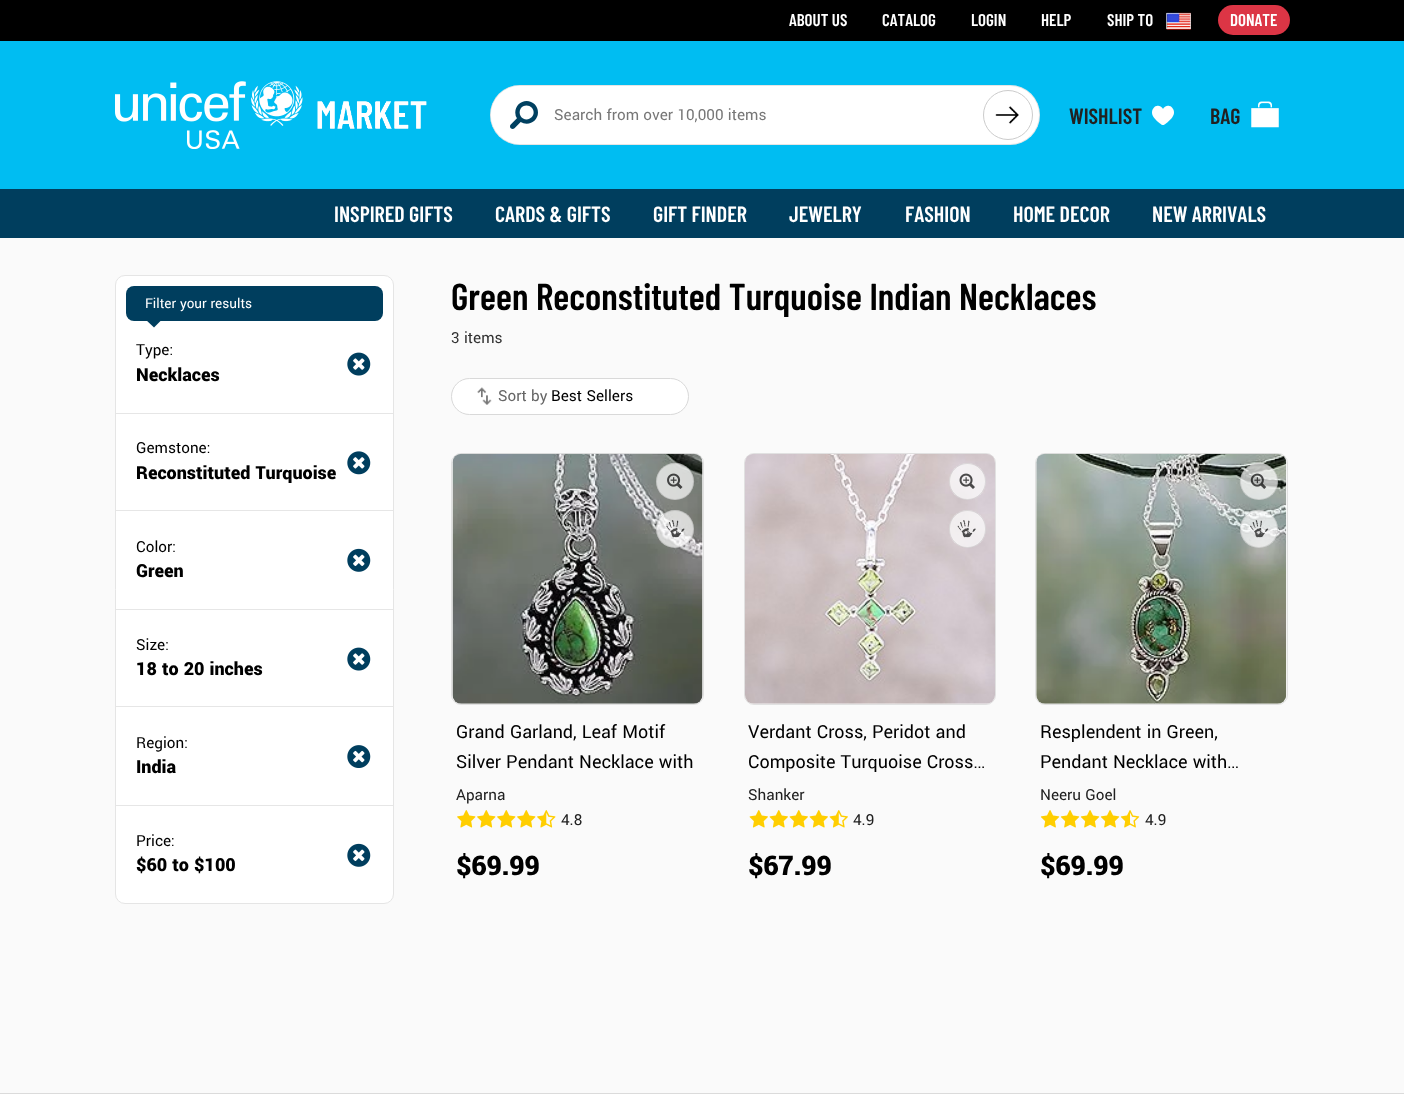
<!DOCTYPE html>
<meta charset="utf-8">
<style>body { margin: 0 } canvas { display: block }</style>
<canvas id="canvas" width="1404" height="1102"></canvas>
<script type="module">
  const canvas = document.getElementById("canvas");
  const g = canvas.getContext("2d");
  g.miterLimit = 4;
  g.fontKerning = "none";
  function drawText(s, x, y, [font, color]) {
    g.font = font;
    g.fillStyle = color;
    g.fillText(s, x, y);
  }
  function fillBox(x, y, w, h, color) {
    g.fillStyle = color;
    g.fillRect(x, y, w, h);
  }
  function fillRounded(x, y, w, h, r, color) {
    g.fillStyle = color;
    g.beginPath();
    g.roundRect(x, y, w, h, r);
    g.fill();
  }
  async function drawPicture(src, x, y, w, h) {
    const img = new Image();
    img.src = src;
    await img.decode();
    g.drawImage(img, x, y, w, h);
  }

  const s1 = ["600 17px Barlow Condensed", "#FFFFFF"];
  const s2 = ["28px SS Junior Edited", "#004060"];
  const s3 = ["17px Yantramanav", "#777777"];
  const s4 = ["600 22px Barlow Condensed", "#212121"];
  const s5 = ["22px SS Junior Edited", "#FFFFFF"];
  const s6 = ["600 22px Barlow Condensed", "#FFFFFF"];
  const s7 = ["15px Yantramanav", "#FFFFFF"];
  const s8 = ["17px Yantramanav", "#000000"];
  const s9 = ["900 20px Yantramanav", "#000000"];
  const s10 = ["600 37.5px Barlow Condensed", "#000000"];
  const s11 = ["17px Yantramanav", "#323232"];
  const s12 = ["17px Yantramanav", "#666666"];
  const s13 = ["20px Yantramanav", "#000000"];
  const s14 = ["17px Yantramanav", "#212121"];
  const s15 = ["900 30px Yantramanav", "#000000"];

  fillBox(0, 0, 1404, 1102, "#FAFAFA");
  fillBox(0, 41, 1404, 148, "#00BDF2");
  fillBox(0, 0, 1404, 41, "#000000");
  drawText("ABOUT US", 789, 26, s1);
  drawText("CATALOG", 882, 26, s1);
  drawText("LOGIN", 971, 26, s1);
  drawText("HELP", 1041, 26, s1);
  drawText("SHIP TO", 1107, 26, s1);
  await drawPicture("pic1.png", 1166, 12, 25, 18);
  g.strokeStyle = "rgba(255, 255, 255, 0.6)";
  g.strokeRect(1166.5, 13.5, 24, 15);
  fillRounded(1218, 5, 72, 30, 15, "#DC3545");
  drawText("DONATE", 1230, 26, s1);
  await drawPicture("pic2.png", 115, 81, 188, 68);
  await drawPicture("pic3.png", 317, 101, 110, 28);
  fillRounded(490, 85, 550, 60, 30, "#FFFFFF");
  g.beginPath();
  g.roundRect(490.5, 85.5, 549, 59, 29.5);
  g.strokeStyle = "rgba(0, 0, 0, 0.1)";
  g.stroke();
  g.beginPath();
  g.roundRect(491, 86, 492, 58, [29, 0, 0, 29]);
  g.fill();
  drawText("🔎", 510, 129, s2);
  drawText("Search from over 10,000 items", 554, 120, s3);
  g.beginPath();
  g.arc(1008, 115, 24.5, 0, Math.PI * 2);
  g.strokeStyle = "#CCCCCC";
  g.stroke();
  await drawPicture("pic4.png", 995, 106, 24, 18);
  drawText("WISHLIST", 1069, 124, s4);
  drawText("♥", 1152, 125, s5);
  drawText("BAG", 1210, 124, s4);
  await drawPicture("pic5.png", 1251, 101, 28, 27);
  fillBox(0, 189, 1404, 49, "#003E5E");
  drawText("INSPIRED GIFTS", 334, 222, s6);
  drawText("CARDS & GIFTS", 495, 222, s6);
  drawText("GIFT FINDER", 653, 222, s6);
  drawText("JEWELRY", 789, 222, s6);
  drawText("FASHION", 905, 222, s6);
  drawText("HOME DECOR", 1013, 222, s6);
  drawText("NEW ARRIVALS", 1152, 222, s6);
  g.beginPath();
  g.roundRect(115.5, 275.5, 278, 628, 9.5);
  g.fill();
  g.strokeStyle = "#E5E5E5";
  g.stroke();
  fillRounded(126, 286, 257, 35, 8, "#003E5E");
  drawText("Filter your results", 145, 308, s7);
  g.fillStyle = "#003E5E";
  g.beginPath();
  g.moveTo(145, 319);
  g.lineTo(162.5, 319);
  g.lineTo(154, 327.5);
  g.closePath();
  g.fill();
  drawText("Type:", 136, 355, s8);
  drawText("Necklaces", 136, 381, s9);
  await drawPicture("pic6.png", 347, 352, 24, 24);
  fillBox(116, 413, 277, 1, "#E6E6E6");
  drawText("Gemstone:", 136, 453, s8);
  drawText("Reconstituted Turquoise", 136, 479, s9);
  await drawPicture("pic7.png", 347, 451, 24, 24);
  fillBox(116, 510, 277, 1, "#E6E6E6");
  drawText("Color:", 136, 552, s8);
  drawText("Green", 136, 577, s9);
  await drawPicture("pic8.png", 347, 548, 24, 24);
  fillBox(116, 609, 277, 1, "#E6E6E6");
  drawText("Size:", 136, 650, s8);
  drawText("18 to 20 inches", 136, 675, s9);
  await drawPicture("pic6.png", 347, 647, 24, 24);
  fillBox(116, 706, 277, 1, "#E6E6E6");
  drawText("Region:", 136, 748, s8);
  drawText("India", 136, 773, s9);
  await drawPicture("pic9.png", 347, 745, 24, 23);
  fillBox(116, 805, 277, 1, "#E6E6E6");
  drawText("Price:", 136, 846, s8);
  drawText("$60 to $100", 136, 871, s9);
  await drawPicture("pic8.png", 347, 843, 24, 24);
  drawText("Green Reconstituted Turquoise Indian Necklaces", 451, 310, s10);
  drawText("3 items", 451, 343, s11);
  g.fillStyle = "#FFFFFF";
  g.beginPath();
  g.roundRect(451.5, 378.5, 237, 36, 18);
  g.fill();
  g.strokeStyle = "#D9D9D9";
  g.stroke();
  await drawPicture("pic10.png", 477, 387, 15, 18);
  drawText("Sort by", 498, 401, s12);
  drawText("Best Sellers", 551, 401, s8);
  g.beginPath();
  g.roundRect(451.5, 453.5, 252, 251, 9.5);
  g.strokeStyle = "#E1E1E1";
  g.stroke();
  await drawPicture("pic11.png", 452, 453, 251, 251);
  fillRounded(656, 463, 38, 37, 18.5, "rgba(255, 255, 255, 0.7)");
  g.beginPath();
  g.roundRect(656.5, 463.5, 37, 36, 18);
  g.strokeStyle = "rgba(0, 0, 0, 0.1)";
  g.stroke();
  await drawPicture("pic12.png", 667, 473, 16, 16);
  g.beginPath();
  g.arc(675, 529, 19, 0, Math.PI * 2);
  g.fill();
  g.beginPath();
  g.arc(675, 529, 18.5, 0, Math.PI * 2);
  g.stroke();
  await drawPicture("pic13.png", 666, 520, 19, 18);
  drawText("Grand Garland, Leaf Motif", 456, 738, s13);
  drawText("Silver Pendant Necklace with", 456, 768, s13);
  drawText("Aparna", 456, 800, s14);
  await drawPicture("pic14.png", 457, 810, 19, 18);
  await drawPicture("pic14.png", 477, 810, 19, 18);
  await drawPicture("pic14.png", 497, 810, 19, 18);
  await drawPicture("pic14.png", 517, 810, 19, 18);
  await drawPicture("pic15.png", 537, 810, 19, 18);
  drawText("4.8", 561, 825, s14);
  g.letterSpacing = "-0.5px";
  drawText("$69.99", 456, 875, s15);
  g.beginPath();
  g.roundRect(744.5, 453.5, 251, 251, 9.5);
  g.strokeStyle = "#E1E1E1";
  g.stroke();
  await drawPicture("pic16.png", 745, 454, 250, 250);
  g.fillStyle = "rgba(255, 255, 255, 0.7)";
  g.beginPath();
  g.arc(967.5, 481.5, 18.5, 0, Math.PI * 2);
  g.fill();
  g.beginPath();
  g.arc(967.5, 481.5, 18, 0, Math.PI * 2);
  g.strokeStyle = "rgba(0, 0, 0, 0.1)";
  g.stroke();
  await drawPicture("pic17.png", 959, 473, 16, 16);
  fillRounded(949, 510, 37, 38, 18.5, "rgba(255, 255, 255, 0.7)");
  g.beginPath();
  g.roundRect(949.5, 510.5, 36, 37, 18);
  g.stroke();
  await drawPicture("pic18.png", 957, 520, 19, 18);
  g.letterSpacing = "0px";
  drawText("Verdant Cross, Peridot and", 748, 738, s13);
  drawText("Composite Turquoise Cross…", 748, 768, s13);
  drawText("Shanker", 748, 800, s14);
  await drawPicture("pic19.png", 749, 810, 19, 18);
  await drawPicture("pic19.png", 769, 810, 19, 18);
  await drawPicture("pic19.png", 789, 810, 19, 18);
  await drawPicture("pic19.png", 809, 810, 19, 18);
  await drawPicture("pic20.png", 829, 810, 19, 18);
  drawText("4.9", 853, 825, s14);
  g.letterSpacing = "-0.5px";
  drawText("$67.99", 748, 875, s15);
  g.beginPath();
  g.roundRect(1035.5, 453.5, 252, 251, 9.5);
  g.strokeStyle = "#E1E1E1";
  g.stroke();
  await drawPicture("pic21.png", 1036, 453, 251, 251);
  fillRounded(1240, 463, 38, 37, 18.5, "rgba(255, 255, 255, 0.7)");
  g.beginPath();
  g.roundRect(1240.5, 463.5, 37, 36, 18);
  g.strokeStyle = "rgba(0, 0, 0, 0.1)";
  g.stroke();
  await drawPicture("pic22.png", 1250, 473, 17, 16);
  g.beginPath();
  g.arc(1259, 529, 19, 0, Math.PI * 2);
  g.fill();
  g.beginPath();
  g.arc(1259, 529, 18.5, 0, Math.PI * 2);
  g.stroke();
  await drawPicture("pic23.png", 1250, 520, 19, 18);
  g.letterSpacing = "0px";
  drawText("Resplendent in Green,", 1040, 738, s13);
  drawText("Pendant Necklace with…", 1040, 768, s13);
  drawText("Neeru Goel", 1040, 800, s14);
  await drawPicture("pic24.png", 1040, 810, 20, 18);
  await drawPicture("pic24.png", 1060, 810, 20, 18);
  await drawPicture("pic24.png", 1080, 810, 20, 18);
  await drawPicture("pic24.png", 1100, 810, 20, 18);
  await drawPicture("pic25.png", 1120, 810, 20, 18);
  drawText("4.9", 1145, 825, s14);
  g.letterSpacing = "-0.5px";
  drawText("$69.99", 1040, 875, s15);
  fillBox(0, 1094, 1404, 8, "#FFFFFF");
  fillBox(0, 1093, 1404, 1, "#DBDBDB");
</script>
